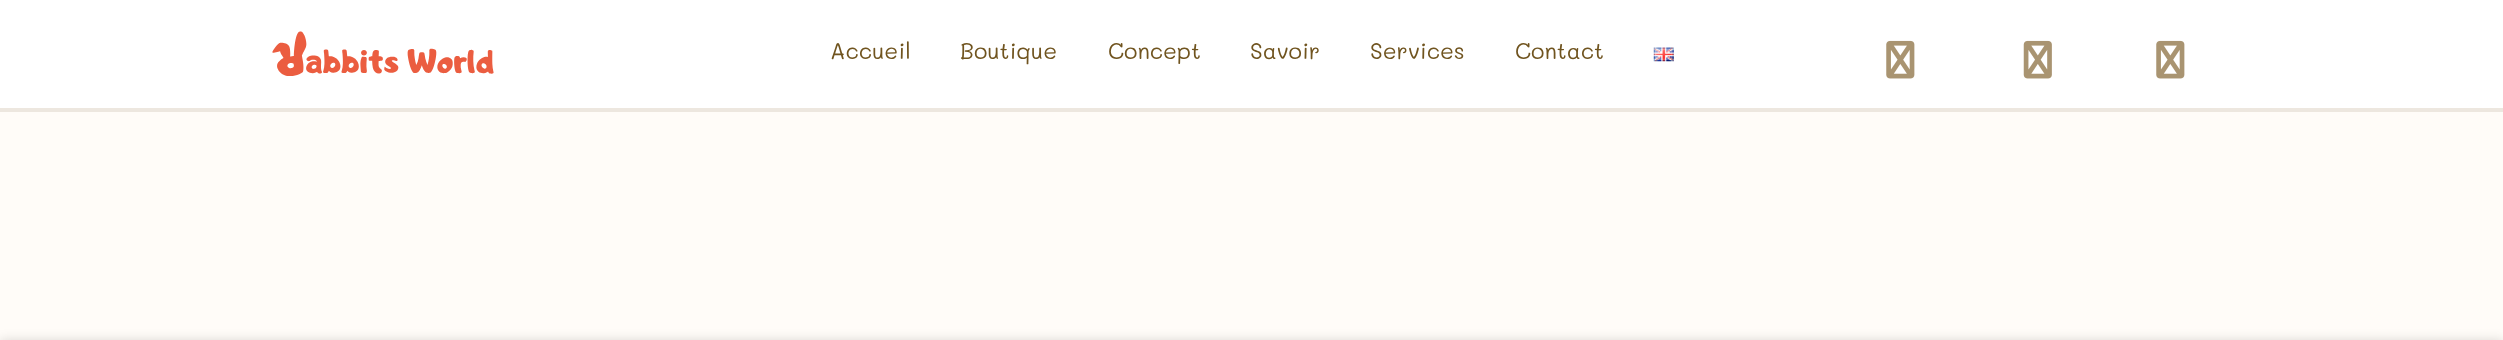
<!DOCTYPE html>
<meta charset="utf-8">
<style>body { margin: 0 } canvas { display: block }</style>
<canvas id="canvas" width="2503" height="340"></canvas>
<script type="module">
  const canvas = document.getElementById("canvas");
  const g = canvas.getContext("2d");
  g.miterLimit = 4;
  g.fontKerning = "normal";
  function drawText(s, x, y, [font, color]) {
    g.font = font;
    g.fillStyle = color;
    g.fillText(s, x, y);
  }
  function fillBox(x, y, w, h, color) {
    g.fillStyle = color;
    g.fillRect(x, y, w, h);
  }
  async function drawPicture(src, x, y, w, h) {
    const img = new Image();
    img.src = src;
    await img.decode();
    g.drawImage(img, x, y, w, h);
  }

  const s1 = ["22.5px Mali", "#70541F"];

  fillBox(0, 0, 2503, 340, "#FFFFFF");
  fillBox(0, 108, 2503, 4, "#EDE7DF");
  await drawPicture("pic1.png", 272, 31, 222, 45);
  drawText("Accueil", 830, 59, s1);
  drawText("Boutique", 960, 59, s1);
  drawText("Concept", 1108, 59, s1);
  drawText("Savoir", 1250, 59, s1);
  drawText("Services", 1370, 59, s1);
  drawText("Contact", 1515, 59, s1);
  await drawPicture("pic2.png", 1653, 47, 21, 15);
  await drawPicture("pic3.png", 1886, 40, 29, 39);
  await drawPicture("pic4.png", 2023, 40, 29, 39);
  await drawPicture("pic3.png", 2156, 40, 29, 39);
  fillBox(0, 112, 2503, 228, "#FFFCF8");
  g.fillStyle = "rgba(0, 0, 0, 0.14)";
  g.filter = "blur(5.5px)";
  g.beginPath();
  g.rect(0, 340, 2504, 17);
  g.fill();
  g.filter = "none";
</script>
